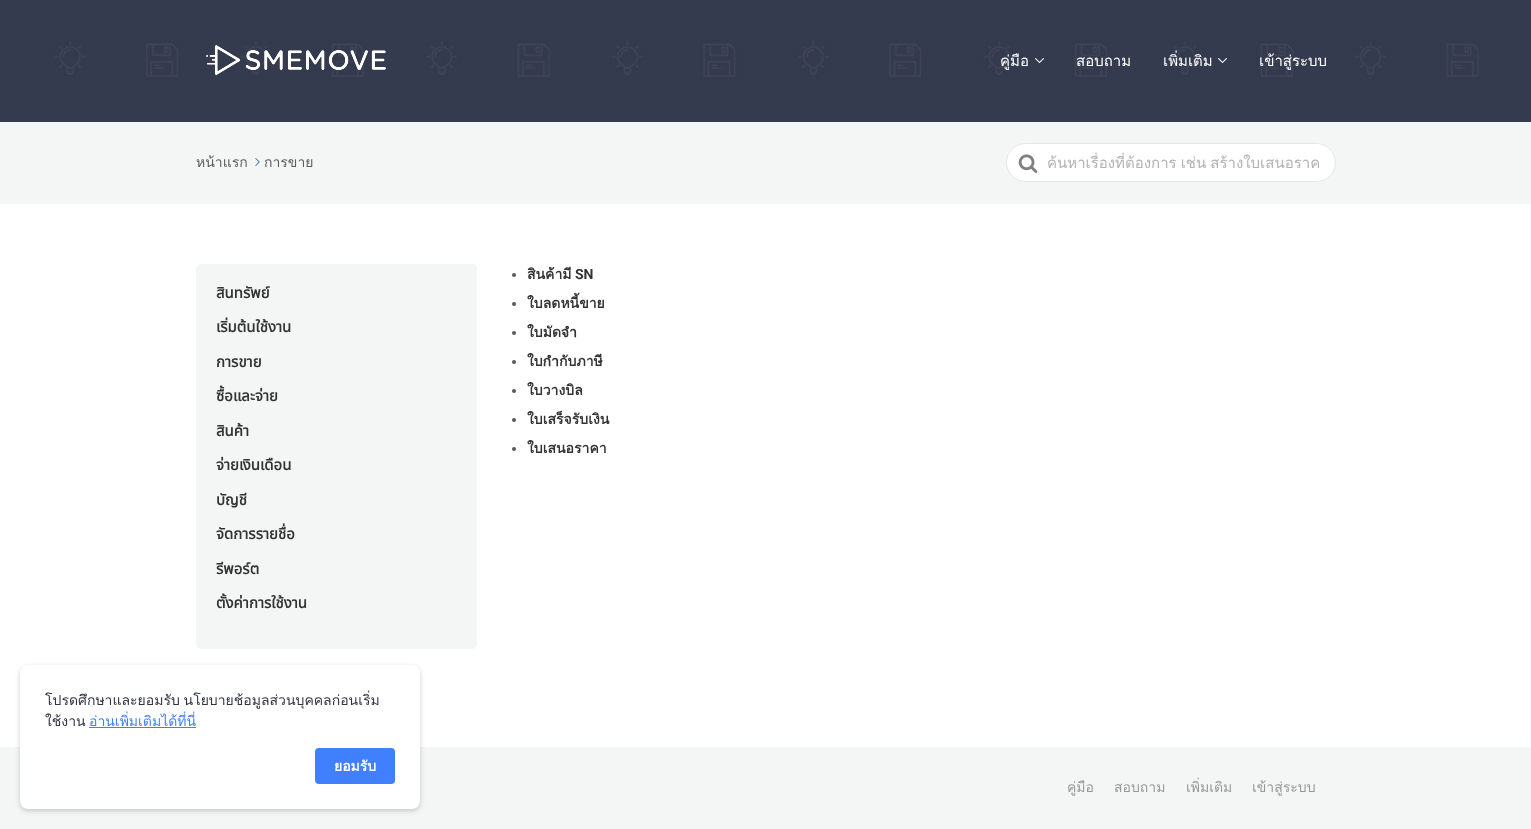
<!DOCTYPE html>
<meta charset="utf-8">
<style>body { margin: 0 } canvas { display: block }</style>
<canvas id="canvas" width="1531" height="829"></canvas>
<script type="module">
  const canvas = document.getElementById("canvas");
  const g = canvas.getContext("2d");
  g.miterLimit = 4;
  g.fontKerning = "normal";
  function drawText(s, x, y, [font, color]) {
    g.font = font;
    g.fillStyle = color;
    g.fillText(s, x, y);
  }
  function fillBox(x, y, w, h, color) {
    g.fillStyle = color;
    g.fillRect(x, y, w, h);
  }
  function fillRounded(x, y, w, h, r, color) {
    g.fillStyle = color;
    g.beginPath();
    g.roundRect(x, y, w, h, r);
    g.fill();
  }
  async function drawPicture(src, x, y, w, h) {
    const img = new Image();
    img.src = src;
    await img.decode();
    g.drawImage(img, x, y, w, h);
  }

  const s1 = ["15px Loma", "#FFFFFF"];
  const s2 = ["14px Loma", "#5C5C5C"];
  const s3 = ["15px Loma", "#B3B3B3"];
  const s4 = ["bold 15px Noto Sans Thai", "#333333"];
  const s5 = ["bold 14px Loma", "#333333"];
  const s6 = ["bold 14px Roboto", "#333333"];
  const s7 = ["14px Loma", "#999999"];
  const s8 = ["14px Loma", "#313541"];
  const s9 = ["14px Loma", "#4080FF"];
  const s10 = ["bold 14px Loma", "#FFFFFF"];

  fillBox(0, 0, 1531, 829, "#FFFFFF");
  await drawPicture("pic1.png", 0, 0, 1531, 122);
  await drawPicture("pic2.png", 206, 45, 180, 30);
  drawText("คู่มือ", 1000, 66, s1);
  await drawPicture("pic3.png", 1035, 58, 9, 5);
  drawText("สอบถาม", 1076, 66, s1);
  drawText("เพิ่มเติม", 1163, 66, s1);
  await drawPicture("pic3.png", 1218, 58, 9, 5);
  drawText("เข้าสู่ระบบ", 1259, 66, s1);
  fillBox(0, 122, 1531, 82, "#F4F5F5");
  drawText("หน้าแรก", 196, 167, s2);
  await drawPicture("pic4.png", 255, 158, 5, 8);
  drawText("การขาย", 264, 167, s2);
  fillRounded(1006, 143, 330, 39, 19.5, "#FFFFFF");
  g.beginPath();
  g.roundRect(1006.5, 143.5, 329, 38, 19);
  g.strokeStyle = "rgba(204, 204, 204, 0.5)";
  g.stroke();
  await drawPicture("pic5.png", 1018, 154, 20, 19);
  g.save();
  g.beginPath();
  g.rect(1047, 151, 273, 24);
  g.clip();
  g.wordSpacing = "-1px";
  drawText("ค้นหาเรื่องที่ต้องการ เช่น สร้างใบเสนอราค", 1047, 168, s3);
  g.restore();
  fillRounded(196, 264, 281, 385, 5, "#F4F5F5");
  drawText("สินทรัพย์", 216, 298, s4);
  drawText("เริ่มต้นใช้งาน", 216, 332, s4);
  drawText("การขาย", 216, 367, s4);
  drawText("ซื้อและจ่าย", 216, 401, s4);
  drawText("สินค้า", 216, 436, s4);
  drawText("จ่ายเงินเดือน", 216, 470, s4);
  drawText("บัญชี", 216, 505, s4);
  drawText("จัดการรายชื่อ", 216, 539, s4);
  drawText("รีพอร์ต", 216, 574, s4);
  drawText("ตั้งค่าการใช้งาน", 216, 608, s4);
  g.fillStyle = "#595959";
  g.beginPath();
  g.arc(514, 275, 2, 0, Math.PI * 2);
  g.fill();
  drawText("สินค้ามี", 527, 279, s5);
  drawText("SN", 575, 279, s6);
  g.fillStyle = "#595959";
  g.beginPath();
  g.arc(514, 304, 2, 0, Math.PI * 2);
  g.fill();
  drawText("ใบลดหนี้ขาย", 527, 308, s5);
  g.fillStyle = "#595959";
  g.beginPath();
  g.arc(514, 333, 2, 0, Math.PI * 2);
  g.fill();
  drawText("ใบมัดจำ", 527, 337, s5);
  g.fillStyle = "#595959";
  g.beginPath();
  g.arc(514, 362, 2, 0, Math.PI * 2);
  g.fill();
  drawText("ใบกำกับภาษี", 527, 366, s5);
  g.fillStyle = "#595959";
  g.beginPath();
  g.arc(514, 391, 2, 0, Math.PI * 2);
  g.fill();
  drawText("ใบวางบิล", 527, 395, s5);
  g.fillStyle = "#595959";
  g.beginPath();
  g.arc(514, 420, 2, 0, Math.PI * 2);
  g.fill();
  drawText("ใบเสร็จรับเงิน", 527, 424, s5);
  g.fillStyle = "#595959";
  g.beginPath();
  g.arc(514, 449, 2, 0, Math.PI * 2);
  g.fill();
  drawText("ใบเสนอราคา", 527, 453, s5);
  fillBox(0, 747, 1531, 82, "#F4F5F5");
  drawText("คู่มือ", 1067, 792, s7);
  drawText("สอบถาม", 1114, 792, s7);
  drawText("เพิ่มเติม", 1186, 792, s7);
  drawText("เข้าสู่ระบบ", 1252, 792, s7);
  g.fillStyle = "rgba(22, 22, 22, 0.2)";
  g.filter = "blur(2.5px)";
  g.beginPath();
  g.roundRect(20, 667, 400, 144, 8);
  g.fill();
  g.filter = "none";
  fillRounded(20, 665, 400, 144, 8, "#FFFFFF");
  g.wordSpacing = "-1px";
  drawText("โปรดศึกษาและยอมรับ นโยบายช้อมูลส่วนบุคคลก่อนเริ่ม", 45, 705, s8);
  g.wordSpacing = "0px";
  drawText("ใช้งาน", 45, 726, s8);
  drawText("อ่านเพิ่มเติมได้ที่นี่", 89, 726, s9);
  fillBox(89, 727, 107, 1, "#4080FF");
  fillRounded(315, 748, 80, 36, 4, "#4080FF");
  drawText("ยอมรับ", 334, 771, s10);
</script>
